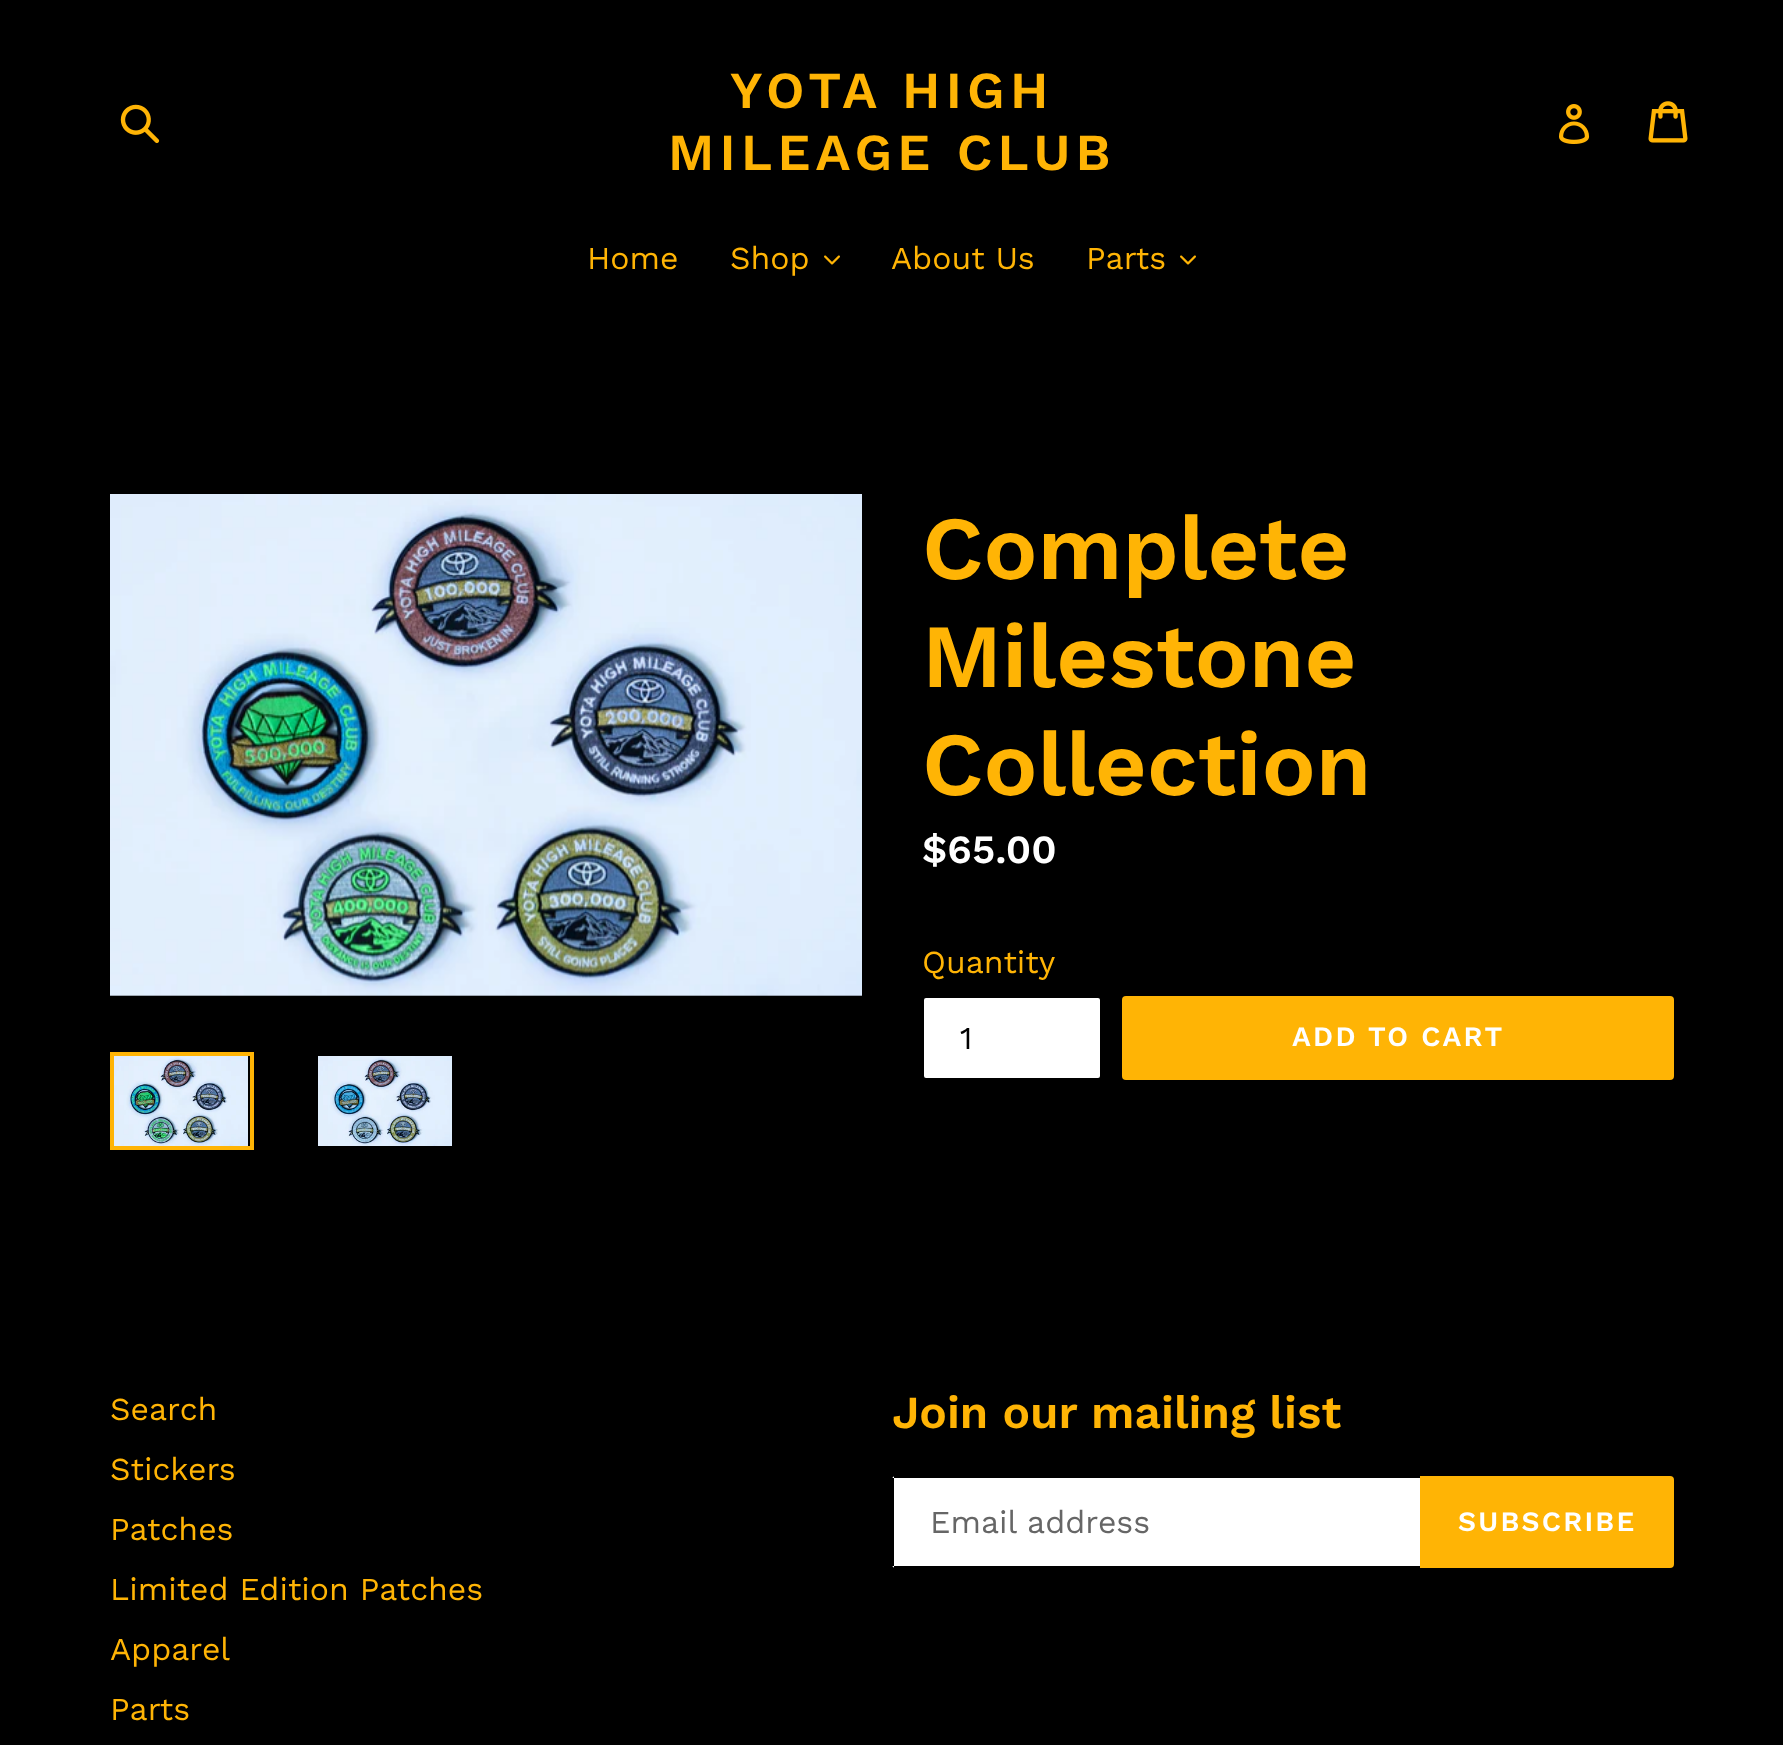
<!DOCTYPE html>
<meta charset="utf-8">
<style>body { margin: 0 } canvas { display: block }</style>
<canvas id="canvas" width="1783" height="1745"></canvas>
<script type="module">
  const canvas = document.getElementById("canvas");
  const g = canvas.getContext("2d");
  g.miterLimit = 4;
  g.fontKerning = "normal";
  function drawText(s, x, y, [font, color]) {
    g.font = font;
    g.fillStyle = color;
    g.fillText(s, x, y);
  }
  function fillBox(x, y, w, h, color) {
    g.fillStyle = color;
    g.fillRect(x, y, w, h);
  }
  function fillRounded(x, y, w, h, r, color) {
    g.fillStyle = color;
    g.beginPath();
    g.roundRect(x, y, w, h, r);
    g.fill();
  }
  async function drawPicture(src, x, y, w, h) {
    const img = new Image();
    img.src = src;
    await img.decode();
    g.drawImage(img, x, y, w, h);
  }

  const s1 = ["600 52px Work Sans", "#FFB405"];
  const s2 = ["32px Work Sans", "#FFB405"];
  const s3 = ["600 90px Work Sans", "#FFB405"];
  const s4 = ["600 40px Work Sans", "#FFFFFF"];
  const s5 = ["32px Work Sans", "#000000"];
  const s6 = ["600 28px Work Sans", "#FFFFFF"];
  const s7 = ["600 46px Work Sans", "#FFB405"];
  const s8 = ["32px Work Sans", "#666666"];

  fillBox(0, 0, 1783, 1745, "#000000");
  await drawPicture("pic1.png", 120, 104, 40, 40);
  g.letterSpacing = "5.25px";
  drawText("YOTA HIGH", 730, 108, s1);
  drawText("MILEAGE CLUB", 668, 170, s1);
  await drawPicture("pic2.png", 1559, 104, 31, 40);
  await drawPicture("pic3.png", 1648, 101, 40, 42);
  g.letterSpacing = "0px";
  drawText("Home", 587, 269, s2);
  drawText("Shop", 730, 269, s2);
  await drawPicture("pic4.png", 824, 255, 16, 10);
  drawText("About Us", 891, 269, s2);
  drawText("Parts", 1086, 269, s2);
  await drawPicture("pic4.png", 1180, 255, 16, 10);
  await drawPicture("pic5.png", 110, 494, 752, 502);
  g.strokeStyle = "#FFB405";
  g.lineWidth = 4;
  g.strokeRect(112, 1054, 140, 94);
  await drawPicture("pic6.png", 114, 1056, 134, 90);
  await drawPicture("pic7.png", 318, 1056, 134, 90);
  drawText("Complete", 922, 579, s3);
  drawText("Milestone", 922, 687, s3);
  drawText("Collection", 922, 795, s3);
  drawText("$65.00", 922, 863, s4);
  drawText("Quantity", 922, 973, s2);
  g.fillStyle = "#FFFFFF";
  g.beginPath();
  g.roundRect(923, 997, 178, 82, 3);
  g.fill();
  g.strokeStyle = "#000000";
  g.lineWidth = 2;
  g.stroke();
  drawText("1", 960, 1049, s5);
  fillRounded(1122, 996, 552, 84, 4, "#FFB405");
  g.letterSpacing = "2.25px";
  drawText("ADD TO CART", 1292, 1046, s6);
  g.letterSpacing = "0px";
  drawText("Search", 110, 1420, s2);
  drawText("Stickers", 110, 1480, s2);
  drawText("Patches", 110, 1540, s2);
  drawText("Limited Edition Patches", 110, 1600, s2);
  drawText("Apparel", 110, 1660, s2);
  drawText("Parts", 110, 1720, s2);
  drawText("Join our mailing list", 892, 1428, s7);
  g.fillStyle = "#FFFFFF";
  g.beginPath();
  g.roundRect(892, 1476, 528, 92, [4, 0, 0, 4]);
  g.fill();
  fillBox(894, 1476, 526, 2, "#000000");
  fillBox(894, 1566, 526, 2, "#000000");
  fillBox(892, 1478, 2, 88, "#000000");
  drawText("Email address", 930, 1533, s8);
  g.fillStyle = "#FFB405";
  g.beginPath();
  g.roundRect(1420, 1476, 254, 92, [0, 4, 4, 0]);
  g.fill();
  g.letterSpacing = "2.25px";
  drawText("SUBSCRIBE", 1458, 1531, s6);
</script>
